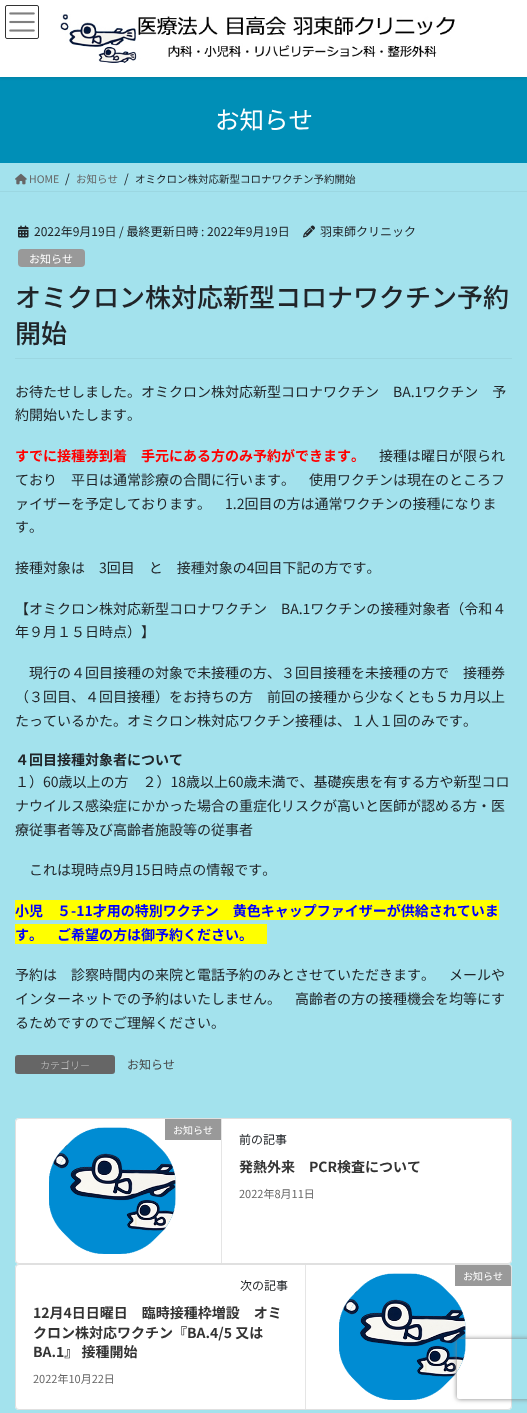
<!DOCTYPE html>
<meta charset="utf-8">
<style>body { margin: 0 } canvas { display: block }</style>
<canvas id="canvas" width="527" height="1413"></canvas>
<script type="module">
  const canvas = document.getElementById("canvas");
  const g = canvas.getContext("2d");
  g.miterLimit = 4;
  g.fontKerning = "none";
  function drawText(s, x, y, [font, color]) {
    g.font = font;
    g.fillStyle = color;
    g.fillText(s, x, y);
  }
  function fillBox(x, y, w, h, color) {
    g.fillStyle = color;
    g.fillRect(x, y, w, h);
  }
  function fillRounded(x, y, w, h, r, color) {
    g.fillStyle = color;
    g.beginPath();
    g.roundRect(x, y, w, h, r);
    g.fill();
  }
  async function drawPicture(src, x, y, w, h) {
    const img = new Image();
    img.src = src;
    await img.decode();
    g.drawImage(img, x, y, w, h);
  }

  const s1 = ["24.5px Noto Sans JP", "#FFFFFF"];
  const s2 = ["10.5px Noto Sans JP", "#666666"];
  const s3 = ["12px Noto Sans JP", "#212529"];
  const s4 = ["10.5px Noto Sans JP", "#212529"];
  const s5 = ["11px Noto Sans JP", "#FFFFFF"];
  const s6 = ["500 26px Noto Sans JP", "#212529"];
  const s7 = ["14px Noto Sans JP", "#212529"];
  const s8 = ["bold 14px Noto Sans JP", "#FF0000"];
  const s9 = ["bold 14px Noto Sans JP", "#212529"];
  const s10 = ["bold 14px Noto Sans JP", "#0000FF"];
  const s11 = ["100 10px Noto Sans JP", "#FFFFFF"];
  const s12 = ["12px Noto Sans JP", "#464646"];
  const s13 = ["10px Noto Sans JP", "#FFFFFF"];
  const s14 = ["bold 14px Noto Sans JP", "#333333"];
  const s15 = ["11px Noto Sans JP", "#666666"];

  fillBox(0, 0, 527, 1413, "#A3E2ED");
  fillBox(0, 77, 527, 86, "#008FB7");
  g.fillStyle = "rgba(0, 0, 0, 0.1)";
  g.filter = "blur(1.5px)";
  g.beginPath();
  g.rect(0, 1, 527, 77);
  g.fill();
  g.filter = "none";
  fillBox(0, 0, 527, 77, "#FFFFFF");
  await drawPicture("pic1.png", 60, 14, 395, 49);
  await drawPicture("pic2.png", 9, 12, 26, 20);
  g.beginPath();
  g.roundRect(5.5, 5.5, 33, 33, 1.5);
  g.strokeStyle = "#333333";
  g.stroke();
  drawText("お知らせ", 215, 129, s1);
  fillBox(0, 191, 527, 1, "#9BD7E1");
  await drawPicture("pic3.png", 15, 173, 12, 12);
  drawText("HOME", 29, 183, s2);
  drawText("/", 65, 183, s3);
  drawText("お知らせ", 76, 183, s2);
  drawText("/", 124, 183, s3);
  drawText("オミクロン株対応新型コロナワクチン予約開始", 135, 183, s4);
  fillBox(15, 358, 497, 1, "#9BD7E1");
  await drawPicture("pic4.png", 18, 225, 11, 13);
  drawText("2022年9月19日", 34, 236, s3);
  drawText("/ 最終更新日時 : 2022年9月19日", 119, 236, s3);
  await drawPicture("pic5.png", 303, 225, 12, 13);
  drawText("羽束師クリニック", 320, 236, s3);
  fillRounded(18, 249, 67, 18, 4, "#999999");
  drawText("お知らせ", 29, 263, s5);
  drawText("オミクロン株対応新型コロナワクチン予約", 15, 307, s6);
  drawText("開始", 15, 343, s6);
  drawText("お待たせしました。オミクロン株対応新型コロナワクチン　BA.1ワクチン　予", 15, 397, s7);
  drawText("約開始いたします。", 15, 420, s7);
  drawText("すでに接種券到着　手元にある方のみ予約ができます。", 15, 461, s8);
  drawText("接種は曜日が限られ", 379, 461, s7);
  drawText("ており　平日は通常診療の合間に行います。", 15, 485, s7);
  drawText("　使用ワクチンは現在のところフ", 295, 485, s7);
  drawText("ァイザーを予定しております。", 15, 509, s7);
  drawText("　1.2回目の方は通常ワクチンの接種になりま", 211, 509, s7);
  drawText("す。", 15, 532, s7);
  drawText("接種対象は　3回目　と　接種対象の4回目下記の方です。", 15, 573, s7);
  drawText("【オミクロン株対応新型コロナワクチン　BA.1ワクチンの接種対象者（令和４", 15, 614, s7);
  drawText("年９月１５日時点）", 15, 637, s7);
  drawText("】", 141, 637, s7);
  drawText("現行の４回目接種の対象で未接種の方、３回目接種を未接種の方で　接種券", 29, 678, s7);
  drawText("（３回目、４回目接種）をお持ちの方　前回の接種から少なくとも５カ月以上", 15, 702, s7);
  drawText("たっているかた。オミクロン株対応ワクチン接種は、１人１回のみです。", 15, 726, s7);
  drawText("４回目接種対象者について", 15, 765, s9);
  drawText("１）60歳以上の方　２）18歳以上60歳未満で、基礎疾患を有する方や新型コロ", 15, 787, s7);
  drawText("ナウイルス感染症にかかった場合の重症化リスクが高いと医師が認める方・医", 15, 811, s7);
  drawText("療従事者等及び高齢者施設等の従事者", 15, 835, s7);
  drawText("これは現時点9月15日時点の情報です。", 29, 875, s7);
  fillBox(15, 900, 484, 20, "#FFFF00");
  drawText("小児　５-11才用の特別ワクチン　黄色キャップファイザーが供給されていま", 15, 916, s10);
  fillBox(15, 924, 252, 20, "#FFFF00");
  drawText("す。", 15, 940, s10);
  drawText("　ご希望の方は御予約ください。", 43, 940, s10);
  drawText("予約は　診察時間内の来院と電話予約のみとさせていただきます。", 15, 980, s7);
  drawText("　メールや", 435, 980, s7);
  drawText("インターネットでの予約はいたしません。", 15, 1004, s7);
  drawText("　高齢者の方の接種機会を均等にす", 281, 1004, s7);
  drawText("るためですのでご理解ください。", 15, 1028, s7);
  fillRounded(15, 1055, 100, 19, 3, "#666666");
  drawText("カテゴリー", 40, 1069, s11);
  drawText("お知らせ", 127, 1069, s12);
  fillRounded(15, 1118, 497, 146, 4, "#FFFFFF");
  g.beginPath();
  g.roundRect(15.5, 1118.5, 496, 145, 3.5);
  g.strokeStyle = "rgba(0, 0, 0, 0.12)";
  g.stroke();
  await drawPicture("pic6.png", 49, 1127, 127, 127);
  fillBox(221, 1119, 1, 144, "#E5E5E5");
  fillBox(165, 1119, 56, 21, "#999999");
  drawText("お知らせ", 173, 1134, s13);
  drawText("前の記事", 239, 1144, s3);
  drawText("発熱外来　PCR検査について", 239, 1172, s14);
  drawText("2022年8月11日", 239, 1198, s15);
  fillRounded(15, 1264, 497, 146, 4, "#FFFFFF");
  g.beginPath();
  g.roundRect(15.5, 1264.5, 496, 145, 3.5);
  g.stroke();
  await drawPicture("pic6.png", 339, 1273, 127, 127);
  fillBox(305, 1265, 1, 144, "#E5E5E5");
  g.fillStyle = "#999999";
  g.beginPath();
  g.roundRect(455, 1265, 56, 21, [0, 2.5, 0, 0]);
  g.fill();
  drawText("お知らせ", 463, 1280, s13);
  drawText("次の記事", 240, 1290, s3);
  drawText("12月4日日曜日　臨時接種枠増設　オミ", 33, 1318, s14);
  drawText("クロン株対応ワクチン『BA.4/5 又は", 33, 1338, s14);
  drawText("BA.1』 接種開始", 33, 1357, s14);
  drawText("2022年10月22日", 33, 1383, s15);
  g.save();
  g.beginPath();
  g.moveTo(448, 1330);
  g.lineTo(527, 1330);
  g.lineTo(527, 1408);
  g.lineTo(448, 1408);
  g.closePath();
  g.moveTo(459, 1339);
  g.lineTo(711, 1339);
  g.bezierCurveTo(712, 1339, 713, 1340, 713, 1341);
  g.lineTo(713, 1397);
  g.bezierCurveTo(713, 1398, 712, 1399, 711, 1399);
  g.lineTo(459, 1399);
  g.bezierCurveTo(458, 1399, 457, 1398, 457, 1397);
  g.lineTo(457, 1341);
  g.bezierCurveTo(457, 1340, 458, 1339, 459, 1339);
  g.closePath();
  g.clip("evenodd");
  g.fillStyle = "#808080";
  g.filter = "blur(2.5px)";
  g.beginPath();
  g.roundRect(457, 1339, 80, 60, 2);
  g.fill();
  g.filter = "none";
  g.restore();
</script>
